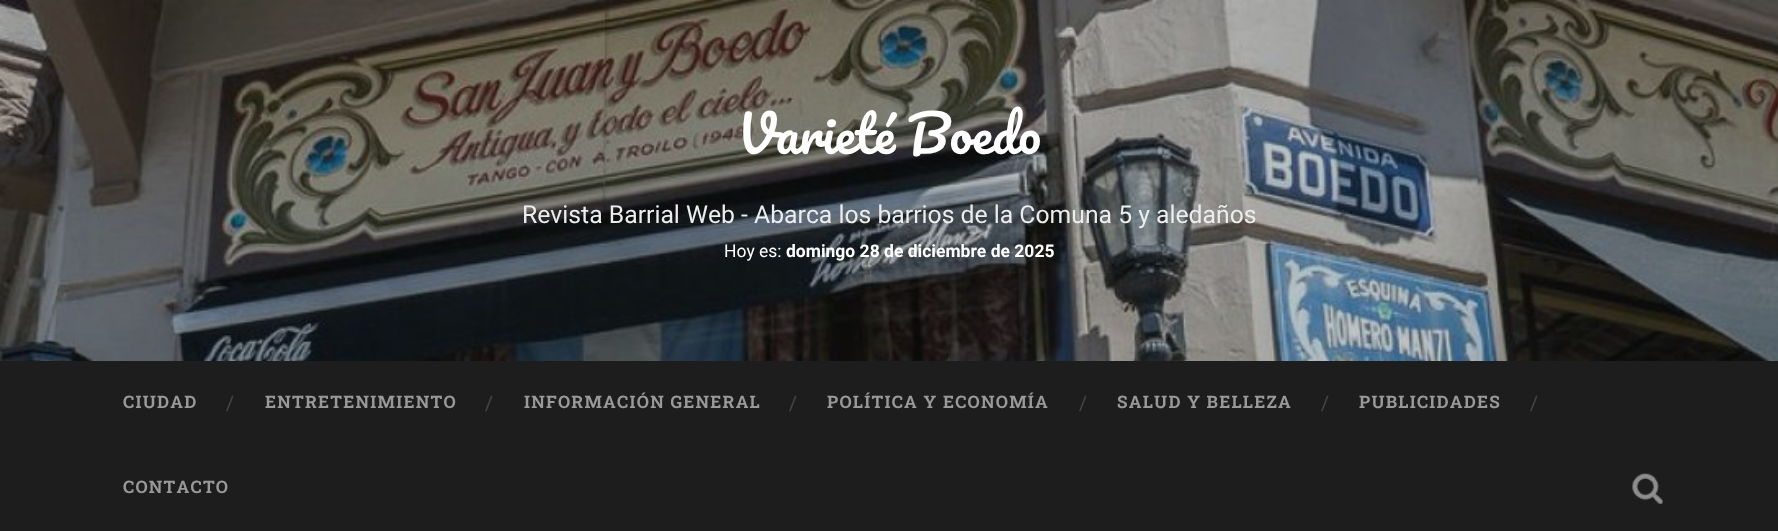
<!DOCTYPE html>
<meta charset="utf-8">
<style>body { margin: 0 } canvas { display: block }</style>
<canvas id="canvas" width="1778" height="531"></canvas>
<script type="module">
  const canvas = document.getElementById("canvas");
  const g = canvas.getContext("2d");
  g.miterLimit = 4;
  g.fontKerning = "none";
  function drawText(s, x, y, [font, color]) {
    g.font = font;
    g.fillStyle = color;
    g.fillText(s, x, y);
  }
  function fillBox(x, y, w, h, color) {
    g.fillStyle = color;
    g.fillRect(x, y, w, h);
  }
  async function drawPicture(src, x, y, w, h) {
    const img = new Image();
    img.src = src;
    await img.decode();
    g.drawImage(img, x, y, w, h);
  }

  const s1 = ["50.5px Pacifico", "#FFFFFF"];
  const s2 = ["24.75px Roboto", "#ECEDED"];
  const s3 = ["17.5px Roboto", "#FFFFFF"];
  const s4 = ["bold 17.5px Roboto", "#FFFFFF"];
  const s5 = ["bold 17.25px Roboto Slab", "#999999"];
  const s6 = ["20px Roboto Slab", "#444444"];

  fillBox(0, 0, 1778, 531, "#FFFFFF");
  await drawPicture("pic1.png", 0, 0, 1778, 361);
  g.wordSpacing = "-1px";
  drawText("Varieté Boedo", 737, 154, s1);
  g.wordSpacing = "0px";
  drawText("Revista Barrial Web - Abarca los barrios de la Comuna 5 y aledaños", 522, 223, s2);
  drawText("Hoy es:", 724, 257, s3);
  drawText("domingo 28 de diciembre de 2025", 786, 257, s4);
  fillBox(0, 361, 1778, 170, "#1D1D1D");
  g.letterSpacing = "1.25px";
  drawText("CIUDAD", 123, 408, s5);
  g.letterSpacing = "0px";
  drawText("/", 226, 410, s6);
  g.letterSpacing = "1.25px";
  drawText("ENTRETENIMIENTO", 265, 408, s5);
  g.letterSpacing = "0px";
  drawText("/", 485, 410, s6);
  g.letterSpacing = "1.25px";
  drawText("INFORMACIÓN GENERAL", 524, 408, s5);
  g.letterSpacing = "0px";
  drawText("/", 789, 410, s6);
  g.letterSpacing = "1.25px";
  drawText("POLÍTICA Y ECONOMÍA", 827, 408, s5);
  g.letterSpacing = "0px";
  drawText("/", 1079, 410, s6);
  g.letterSpacing = "1.25px";
  drawText("SALUD Y BELLEZA", 1117, 408, s5);
  g.letterSpacing = "0px";
  drawText("/", 1321, 410, s6);
  g.letterSpacing = "1.25px";
  drawText("PUBLICIDADES", 1359, 408, s5);
  g.letterSpacing = "0px";
  drawText("/", 1530, 410, s6);
  g.letterSpacing = "1.25px";
  drawText("CONTACTO", 123, 493, s5);
  await drawPicture("pic2.png", 1632, 473, 31, 31);
</script>
